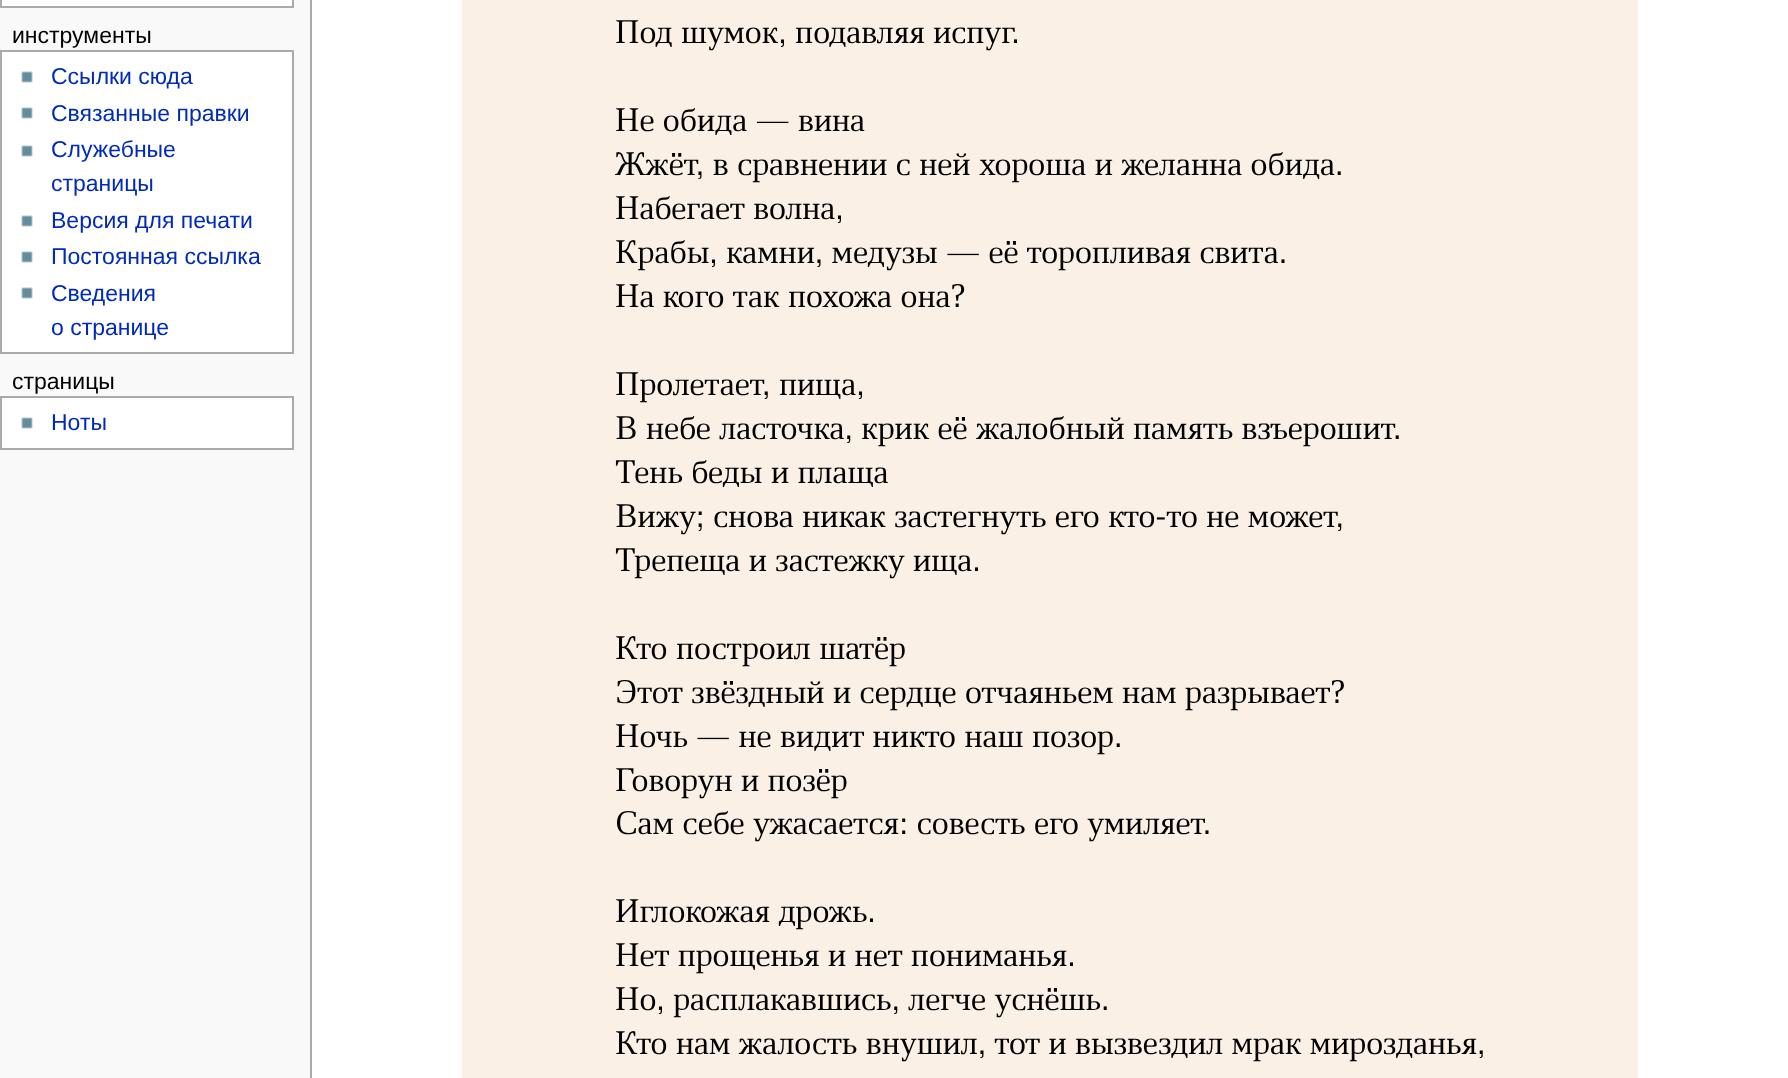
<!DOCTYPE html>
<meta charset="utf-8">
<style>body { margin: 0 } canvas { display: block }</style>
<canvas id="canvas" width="1788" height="1078"></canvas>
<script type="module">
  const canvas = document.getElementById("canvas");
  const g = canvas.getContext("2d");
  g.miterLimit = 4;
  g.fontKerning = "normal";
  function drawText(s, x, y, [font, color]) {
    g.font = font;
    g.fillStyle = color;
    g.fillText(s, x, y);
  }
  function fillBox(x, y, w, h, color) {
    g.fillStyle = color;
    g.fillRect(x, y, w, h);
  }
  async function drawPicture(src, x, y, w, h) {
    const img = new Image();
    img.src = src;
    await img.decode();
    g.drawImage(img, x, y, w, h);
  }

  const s1 = ["23px Liberation Sans", "#000000"];
  const s2 = ["23px Liberation Sans", "#002BB8"];
  const s3 = ["33.8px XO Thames", "#000000"];

  fillBox(0, 0, 1788, 1078, "#F9F9F9");
  g.fillStyle = "#FFFFFF";
  g.beginPath();
  g.rect(1, -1, 292, 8);
  g.fill();
  g.strokeStyle = "#AAAAAA";
  g.lineWidth = 2;
  g.stroke();
  drawText("инструменты", 12, 43, s1);
  g.fillStyle = "#FFFFFF";
  g.beginPath();
  g.rect(1, 51, 292, 302);
  g.fill();
  g.stroke();
  await drawPicture("pic1.png", 21, 71, 12, 12);
  drawText("Ссылки сюда", 51, 84, s2);
  await drawPicture("pic1.png", 21, 107, 12, 12);
  drawText("Связанные правки", 51, 121, s2);
  await drawPicture("pic1.png", 21, 145, 12, 12);
  drawText("Служебные", 51, 157, s2);
  drawText("страницы", 51, 191, s2);
  await drawPicture("pic1.png", 21, 215, 12, 12);
  drawText("Версия для печати", 51, 228, s2);
  await drawPicture("pic1.png", 21, 251, 12, 12);
  drawText("Постоянная ссылка", 51, 264, s2);
  await drawPicture("pic1.png", 21, 287, 12, 12);
  drawText("Сведения", 51, 301, s2);
  drawText("о странице", 51, 335, s2);
  drawText("страницы", 12, 389, s1);
  g.fillStyle = "#FFFFFF";
  g.beginPath();
  g.rect(1, 397, 292, 52);
  g.fill();
  g.stroke();
  await drawPicture("pic1.png", 21, 417, 12, 12);
  drawText("Ноты", 51, 430, s2);
  fillBox(312, 0, 1476, 1078, "#FFFFFF");
  fillBox(310, 0, 2, 1078, "#AAAAAA");
  fillBox(462, 0, 1176, 1078, "#FAF0E6");
  drawText("Под шумок, подавляя испуг.", 615, 43, s3);
  drawText("Не обида — вина", 615, 131, s3);
  drawText("Жжёт, в сравнении с ней хороша и желанна обида.", 615, 175, s3);
  drawText("Набегает волна,", 615, 219, s3);
  drawText("Крабы, камни, медузы — её торопливая свита.", 615, 263, s3);
  drawText("На кого так похожа она?", 615, 307, s3);
  drawText("Пролетает, пища,", 615, 395, s3);
  drawText("В небе ласточка, крик её жалобный память взъерошит.", 615, 439, s3);
  drawText("Тень беды и плаща", 615, 483, s3);
  drawText("Вижу; снова никак застегнуть его кто-то не может,", 615, 527, s3);
  drawText("Трепеща и застежку ища.", 615, 571, s3);
  drawText("Кто построил шатёр", 615, 659, s3);
  drawText("Этот звёздный и сердце отчаяньем нам разрывает?", 615, 703, s3);
  drawText("Ночь — не видит никто наш позор.", 615, 747, s3);
  drawText("Говорун и позёр", 615, 791, s3);
  drawText("Сам себе ужасается: совесть его умиляет.", 615, 834, s3);
  drawText("Иглокожая дрожь.", 615, 922, s3);
  drawText("Нет прощенья и нет пониманья.", 615, 966, s3);
  drawText("Но, расплакавшись, легче уснёшь.", 615, 1010, s3);
  drawText("Кто нам жалость внушил, тот и вызвездил мрак мирозданья,", 615, 1054, s3);
</script>
